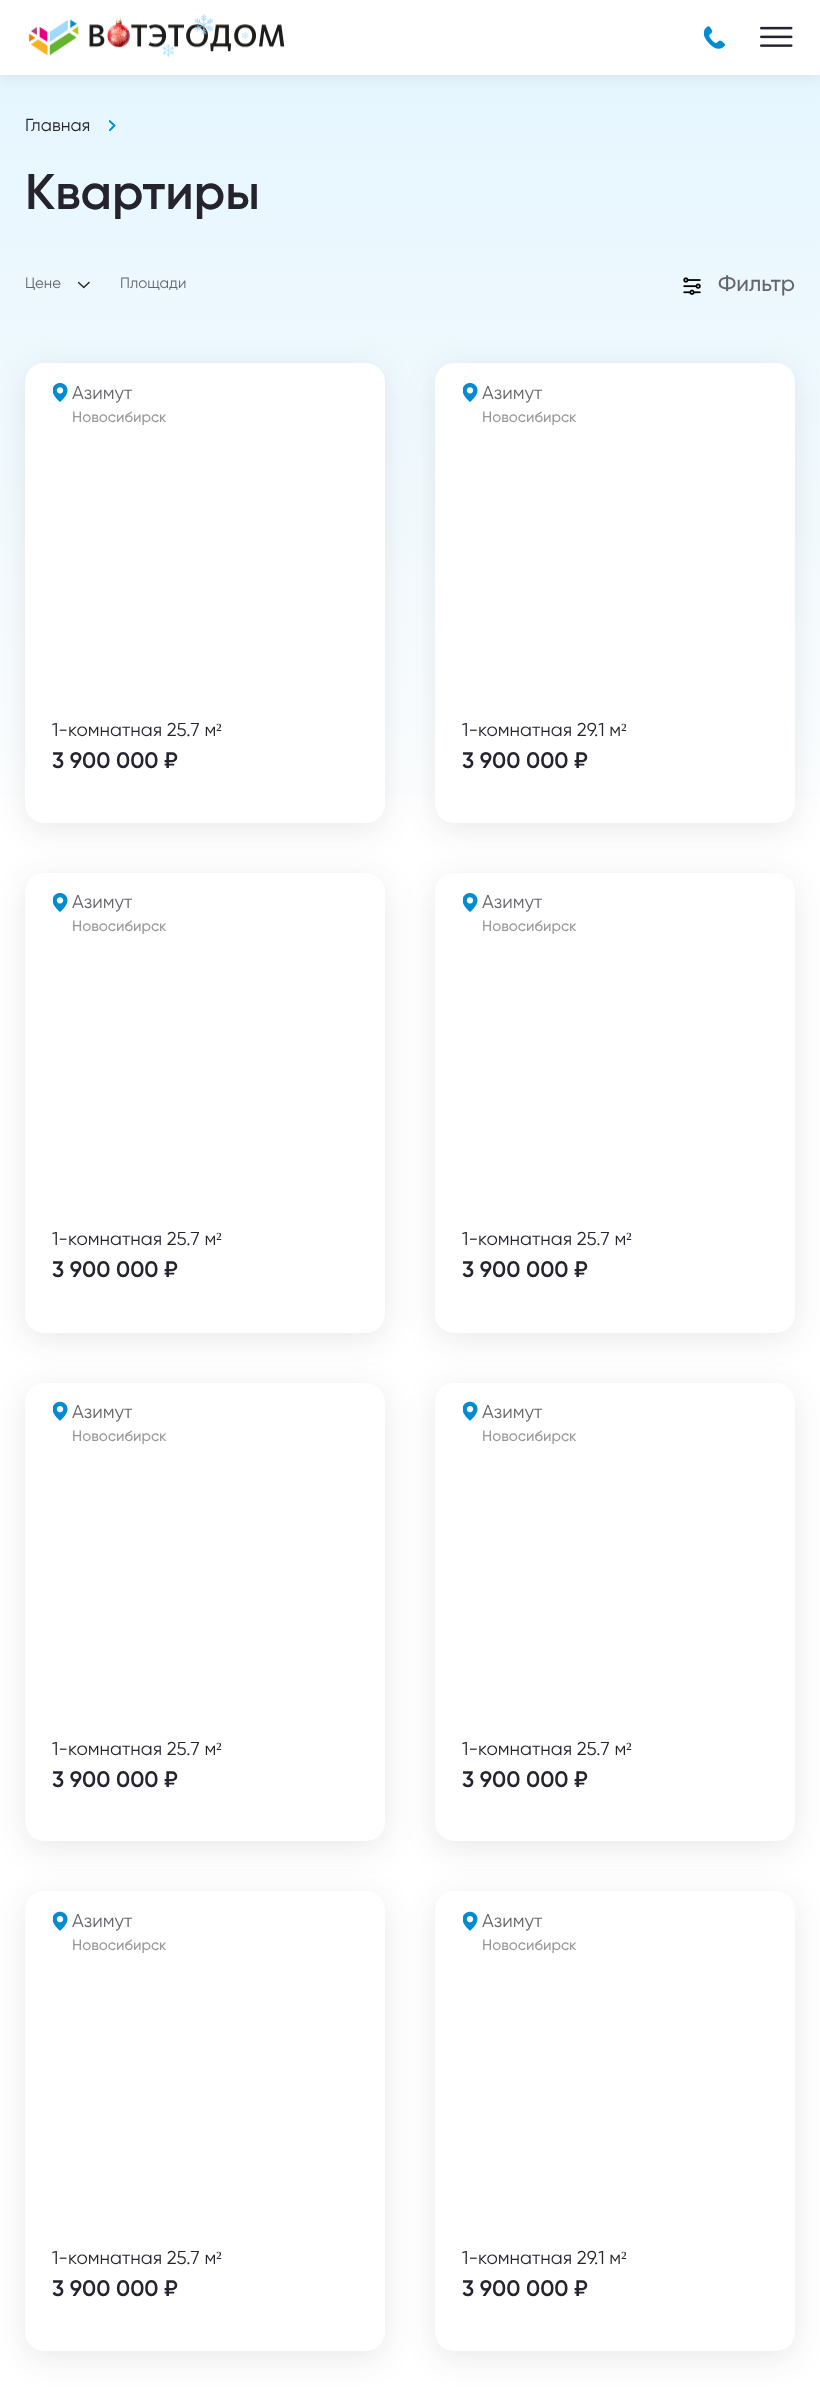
<!DOCTYPE html>
<meta charset="utf-8">
<style>body { margin: 0 } canvas { display: block }</style>
<canvas id="canvas" width="820" height="2400"></canvas>
<script type="module">
  const canvas = document.getElementById("canvas");
  const g = canvas.getContext("2d");
  g.miterLimit = 4;
  g.fontKerning = "normal";
  function drawText(s, x, y, [font, color]) {
    g.font = font;
    g.fillStyle = color;
    g.fillText(s, x, y);
  }
  function fillBox(x, y, w, h, color) {
    g.fillStyle = color;
    g.fillRect(x, y, w, h);
  }
  function fillRounded(x, y, w, h, r, color) {
    g.fillStyle = color;
    g.beginPath();
    g.roundRect(x, y, w, h, r);
    g.fill();
  }
  async function drawPicture(src, x, y, w, h) {
    const img = new Image();
    img.src = src;
    await img.decode();
    g.drawImage(img, x, y, w, h);
  }
  let gradient;

  const s1 = ["17.5px Gilroy", "#25232E"];
  const s2 = ["600 50px Gilroy", "#25232E"];
  const s3 = ["15px Gilroy", "#66656C"];
  const s4 = ["500 22.5px Gilroy", "#66656C"];
  const s5 = ["18.75px Gilroy", "#66656C"];
  const s6 = ["500 15px Gilroy", "#999999"];
  const s7 = ["18.75px Gilroy", "#25232E"];
  const s8 = ["18.75px Liberation Serif", "#25232E"];
  const s9 = ["600 22.5px Gilroy", "#25232E"];

  fillBox(0, 0, 820, 2400, "#FFFFFF");
  gradient = g.createLinearGradient(410, 0, 410, 875);
  gradient.addColorStop(0, "#E3F5FE");
  gradient.addColorStop(1, "#FFFFFF");
  g.fillStyle = gradient;
  g.fillRect(0, 75, 820, 722);
  g.fillStyle = "rgba(0, 0, 0, 0.05)";
  g.filter = "blur(6px)";
  g.beginPath();
  g.rect(0, 5, 820, 75);
  g.fill();
  g.filter = "none";
  fillBox(0, 0, 820, 75, "#FFFFFF");
  await drawPicture("pic1.png", 29, 14, 256, 44);
  await drawPicture("pic2.png", 704, 26, 21, 23);
  await drawPicture("pic3.png", 760, 26, 33, 21);
  drawText("Главная", 25, 131, s1);
  g.save();
  g.beginPath();
  g.rect(109, 120, 7, 11);
  g.clip();
  g.beginPath();
  g.moveTo(109.5, 121);
  g.lineTo(114.5, 125.5);
  g.lineTo(109.5, 130.5);
  g.strokeStyle = "#008BD2";
  g.lineWidth = 1.9;
  g.lineCap = "round";
  g.lineJoin = "round";
  g.stroke();
  g.restore();
  drawText("Квартиры", 25, 209, s2);
  drawText("Цене", 25, 288, s3);
  await drawPicture("pic4.png", 78, 281, 12, 8);
  drawText("Площади", 120, 288, s3);
  await drawPicture("pic5.png", 683, 277, 18, 18);
  drawText("Фильтр", 718, 291, s4);
  g.fillStyle = "rgba(37, 35, 46, 0.1)";
  g.filter = "blur(15.5px)";
  g.beginPath();
  g.roundRect(25, 369, 360, 460, 19);
  g.fill();
  g.filter = "none";
  fillRounded(25, 363, 360, 460, 19, "#FFFFFF");
  await drawPicture("pic6.png", 53, 383, 15, 19);
  drawText("Азимут", 72, 399, s5);
  drawText("Новосибирск", 72, 422, s6);
  drawText("1-комнатная 25.7 м", 52, 736, s7);
  drawText("²", 216, 736, s8);
  drawText("3 900 000 ₽", 52, 768, s9);
  g.fillStyle = "rgba(37, 35, 46, 0.1)";
  g.filter = "blur(15.5px)";
  g.beginPath();
  g.roundRect(435, 369, 360, 460, 19);
  g.fill();
  g.filter = "none";
  fillRounded(435, 363, 360, 460, 19, "#FFFFFF");
  await drawPicture("pic6.png", 463, 383, 15, 19);
  drawText("Азимут", 482, 399, s5);
  drawText("Новосибирск", 482, 422, s6);
  drawText("1-комнатная 29.1 м", 462, 736, s7);
  drawText("²", 621, 736, s8);
  drawText("3 900 000 ₽", 462, 768, s9);
  g.fillStyle = "rgba(37, 35, 46, 0.1)";
  g.filter = "blur(15.5px)";
  g.beginPath();
  g.roundRect(25, 879, 360, 460, 19);
  g.fill();
  g.filter = "none";
  fillRounded(25, 873, 360, 460, 19, "#FFFFFF");
  await drawPicture("pic6.png", 53, 893, 15, 19);
  drawText("Азимут", 72, 908, s5);
  drawText("Новосибирск", 72, 931, s6);
  drawText("1-комнатная 25.7 м", 52, 1245, s7);
  drawText("²", 216, 1245, s8);
  drawText("3 900 000 ₽", 52, 1277, s9);
  g.fillStyle = "rgba(37, 35, 46, 0.1)";
  g.filter = "blur(15.5px)";
  g.beginPath();
  g.roundRect(435, 879, 360, 460, 19);
  g.fill();
  g.filter = "none";
  fillRounded(435, 873, 360, 460, 19, "#FFFFFF");
  await drawPicture("pic6.png", 463, 893, 15, 19);
  drawText("Азимут", 482, 908, s5);
  drawText("Новосибирск", 482, 931, s6);
  drawText("1-комнатная 25.7 м", 462, 1245, s7);
  drawText("²", 626, 1245, s8);
  drawText("3 900 000 ₽", 462, 1277, s9);
  g.fillStyle = "rgba(37, 35, 46, 0.1)";
  g.filter = "blur(15.5px)";
  g.beginPath();
  g.roundRect(25, 1389, 360, 459, 19);
  g.fill();
  g.filter = "none";
  fillRounded(25, 1383, 360, 458, 19, "#FFFFFF");
  await drawPicture("pic7.png", 53, 1401, 15, 20);
  drawText("Азимут", 72, 1418, s5);
  drawText("Новосибирск", 72, 1441, s6);
  drawText("1-комнатная 25.7 м", 52, 1755, s7);
  drawText("²", 216, 1755, s8);
  drawText("3 900 000 ₽", 52, 1787, s9);
  g.fillStyle = "rgba(37, 35, 46, 0.1)";
  g.filter = "blur(15.5px)";
  g.beginPath();
  g.roundRect(435, 1389, 360, 459, 19);
  g.fill();
  g.filter = "none";
  fillRounded(435, 1383, 360, 458, 19, "#FFFFFF");
  await drawPicture("pic7.png", 463, 1401, 15, 20);
  drawText("Азимут", 482, 1418, s5);
  drawText("Новосибирск", 482, 1441, s6);
  drawText("1-комнатная 25.7 м", 462, 1755, s7);
  drawText("²", 626, 1755, s8);
  drawText("3 900 000 ₽", 462, 1787, s9);
  g.fillStyle = "rgba(37, 35, 46, 0.1)";
  g.filter = "blur(15.5px)";
  g.beginPath();
  g.roundRect(25, 1898, 360, 460, 19);
  g.fill();
  g.filter = "none";
  fillRounded(25, 1891, 360, 460, 19, "#FFFFFF");
  await drawPicture("pic7.png", 53, 1911, 15, 20);
  drawText("Азимут", 72, 1927, s5);
  drawText("Новосибирск", 72, 1950, s6);
  drawText("1-комнатная 25.7 м", 52, 2264, s7);
  drawText("²", 216, 2264, s8);
  drawText("3 900 000 ₽", 52, 2296, s9);
  g.fillStyle = "rgba(37, 35, 46, 0.1)";
  g.filter = "blur(15.5px)";
  g.beginPath();
  g.roundRect(435, 1898, 360, 460, 19);
  g.fill();
  g.filter = "none";
  fillRounded(435, 1891, 360, 460, 19, "#FFFFFF");
  await drawPicture("pic7.png", 463, 1911, 15, 20);
  drawText("Азимут", 482, 1927, s5);
  drawText("Новосибирск", 482, 1950, s6);
  drawText("1-комнатная 29.1 м", 462, 2264, s7);
  drawText("²", 621, 2264, s8);
  drawText("3 900 000 ₽", 462, 2296, s9);
</script>
